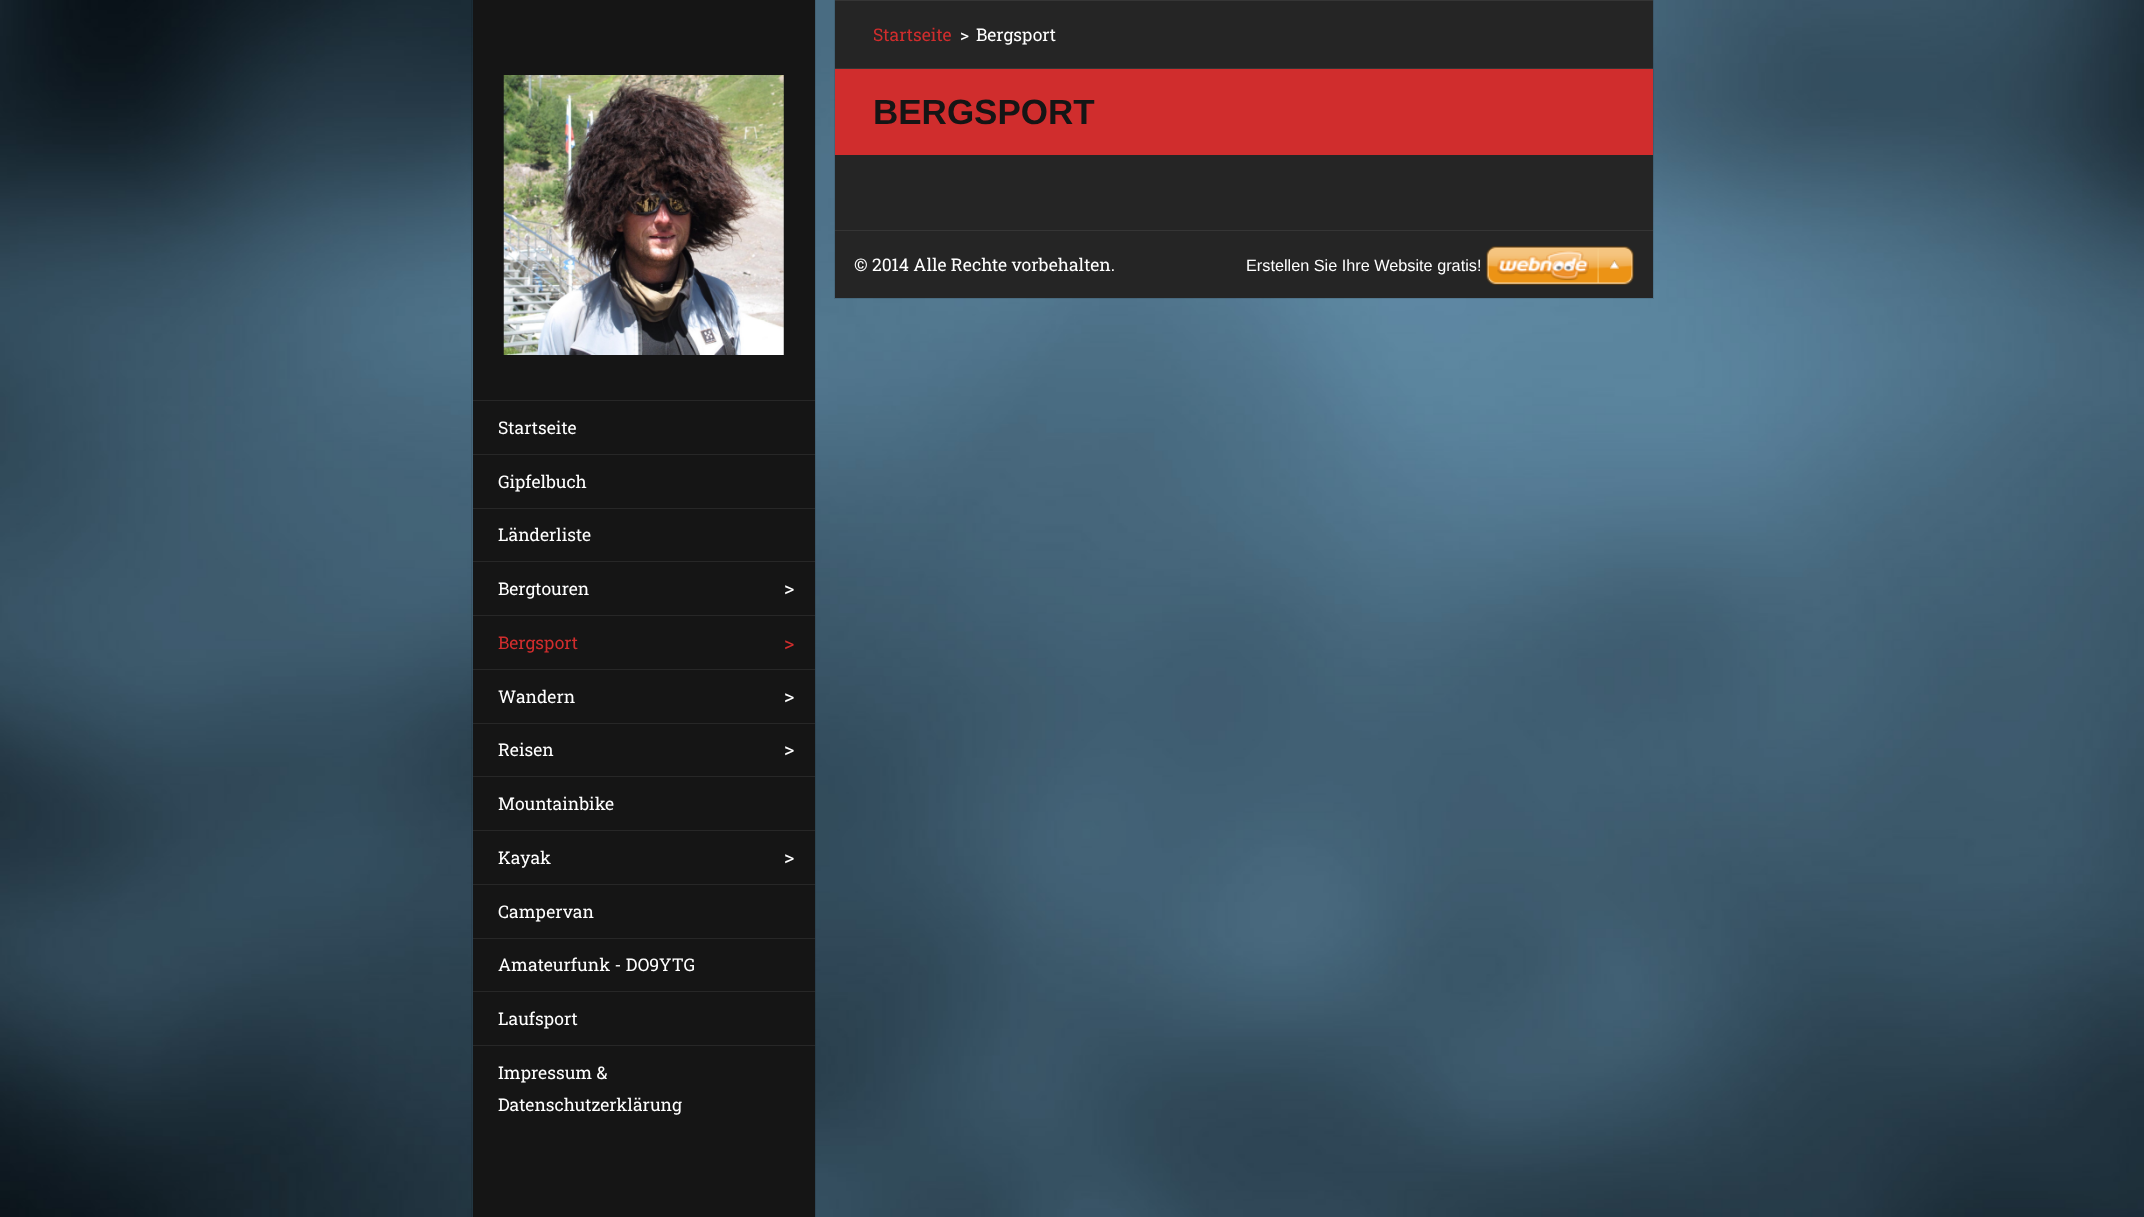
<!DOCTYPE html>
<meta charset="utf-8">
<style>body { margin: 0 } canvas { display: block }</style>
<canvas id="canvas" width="2144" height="1217"></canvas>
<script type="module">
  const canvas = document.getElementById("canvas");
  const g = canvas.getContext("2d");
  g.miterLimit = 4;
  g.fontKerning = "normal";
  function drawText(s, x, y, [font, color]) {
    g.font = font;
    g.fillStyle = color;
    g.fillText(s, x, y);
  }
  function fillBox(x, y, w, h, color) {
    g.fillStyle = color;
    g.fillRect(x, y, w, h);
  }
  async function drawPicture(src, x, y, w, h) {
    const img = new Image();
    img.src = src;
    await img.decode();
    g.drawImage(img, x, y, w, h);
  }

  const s1 = ["17.5px Roboto Slab", "#D02D2D"];
  const s2 = ["17.5px Roboto Slab", "#FFFFFF"];
  const s3 = ["bold 35px Liberation Sans", "#151515"];
  const s4 = ["20px Roboto Slab", "#FFFFFF"];
  const s5 = ["20px Roboto Slab", "#D02D2D"];
  const s6 = ["16.25px Liberation Sans", "#FFFFFF"];

  fillBox(0, 0, 2144, 1217, "#FFFFFF");
  await drawPicture("pic1.png", 0, 0, 2144, 1217);
  fillBox(835, 1, 818, 67, "#252525");
  fillBox(835, 0, 818, 1, "#353535");
  g.strokeStyle = "rgba(0, 0, 0, 0.1)";
  g.strokeRect(834.5, -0.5, 819, 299);
  drawText("Startseite", 873, 41, s1);
  drawText(">", 960, 41, s2);
  drawText("Bergsport", 976, 41, s2);
  fillBox(835, 68, 818, 1, "#353535");
  fillBox(835, 69, 818, 86, "#D02D2D");
  drawText("BERGSPORT", 873, 124, s3);
  fillBox(835, 155, 818, 75, "#252525");
  fillBox(835, 231, 818, 67, "#252525");
  fillBox(835, 230, 818, 1, "#353535");
  drawText("© 2014 Alle Rechte vorbehalten.", 854, 271, s2);
  fillBox(473, 0, 342, 1217, "#151515");
  g.strokeRect(471.5, -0.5, 344, 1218);
  await drawPicture("pic2.png", 503, 75, 281, 280);
  fillBox(473, 400, 342, 1, "#272727");
  drawText("Startseite", 498, 434, s2);
  fillBox(473, 454, 342, 1, "#272727");
  drawText("Gipfelbuch", 498, 488, s2);
  fillBox(473, 508, 342, 1, "#272727");
  drawText("Länderliste", 498, 541, s2);
  fillBox(473, 561, 342, 1, "#272727");
  drawText("Bergtouren", 498, 595, s2);
  drawText(">", 784, 595, s4);
  fillBox(473, 615, 342, 1, "#272727");
  drawText("Bergsport", 498, 649, s1);
  drawText(">", 784, 650, s5);
  fillBox(473, 669, 342, 1, "#272727");
  drawText("Wandern", 498, 703, s2);
  drawText(">", 784, 703, s4);
  fillBox(473, 723, 342, 1, "#272727");
  drawText("Reisen", 498, 756, s2);
  drawText(">", 784, 756, s4);
  fillBox(473, 776, 342, 1, "#272727");
  drawText("Mountainbike", 498, 810, s2);
  fillBox(473, 830, 342, 1, "#272727");
  drawText("Kayak", 498, 864, s2);
  drawText(">", 784, 864, s4);
  fillBox(473, 884, 342, 1, "#272727");
  drawText("Campervan", 498, 918, s2);
  fillBox(473, 938, 342, 1, "#272727");
  drawText("Amateurfunk - DO9YTG", 498, 971, s2);
  fillBox(473, 991, 342, 1, "#272727");
  drawText("Laufsport", 498, 1025, s2);
  fillBox(473, 1045, 342, 1, "#272727");
  drawText("Impressum &", 498, 1079, s2);
  drawText("Datenschutzerklärung", 498, 1111, s2);
  drawText("Erstellen Sie Ihre Website gratis!", 1246, 271, s6);
  await drawPicture("pic3.png", 1486, 246, 148, 39);
</script>
